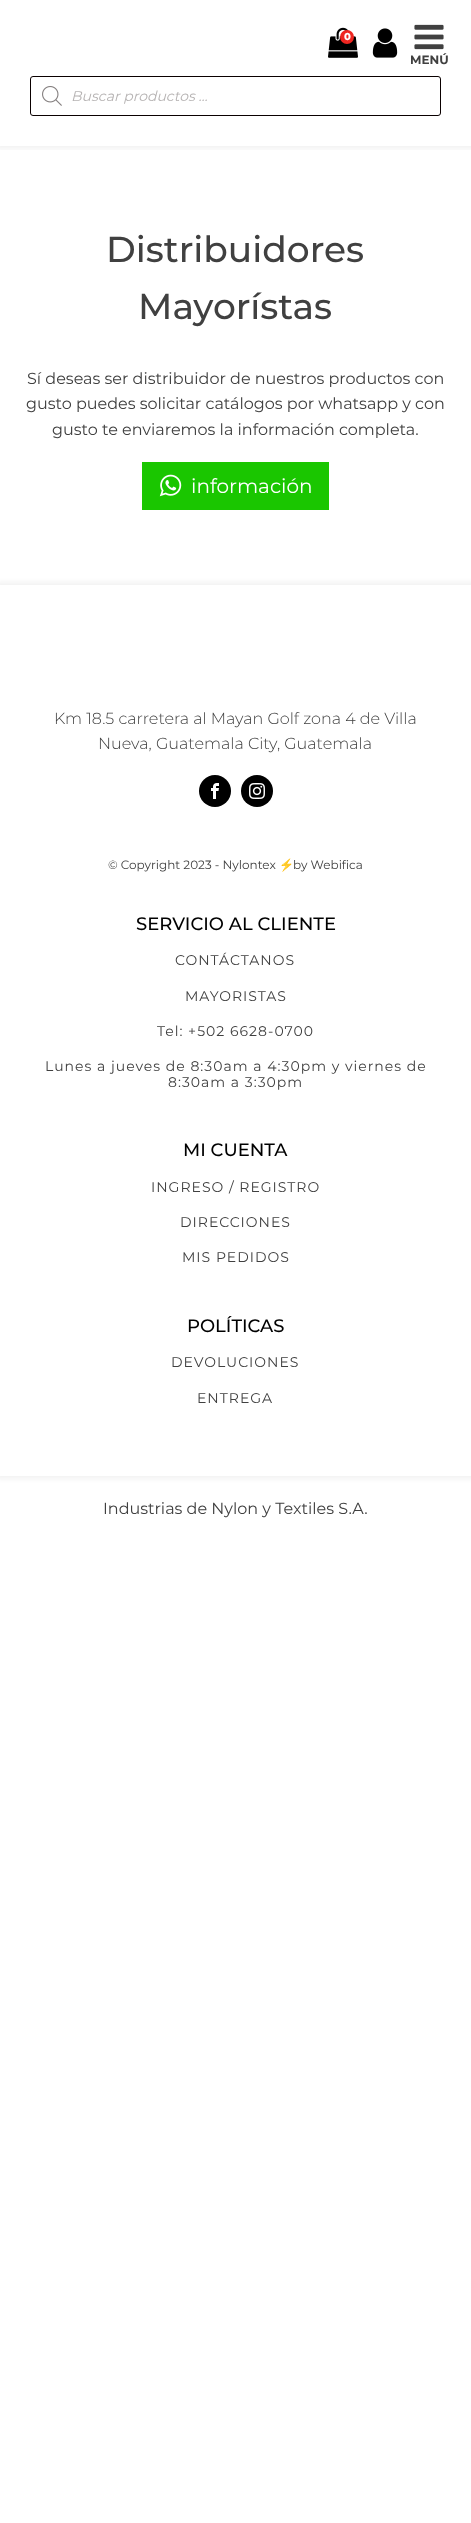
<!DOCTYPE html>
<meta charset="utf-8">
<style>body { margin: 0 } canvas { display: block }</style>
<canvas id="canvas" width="471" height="2523"></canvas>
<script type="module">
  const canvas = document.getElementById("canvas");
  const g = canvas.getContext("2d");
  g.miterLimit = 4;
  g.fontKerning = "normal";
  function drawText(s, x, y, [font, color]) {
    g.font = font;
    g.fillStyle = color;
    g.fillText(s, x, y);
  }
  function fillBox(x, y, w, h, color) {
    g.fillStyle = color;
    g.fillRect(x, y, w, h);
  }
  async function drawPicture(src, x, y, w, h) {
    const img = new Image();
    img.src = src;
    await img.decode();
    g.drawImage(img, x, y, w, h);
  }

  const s1 = ["800 10px Montserrat", "#FFFFFF"];
  const s2 = ["bold 12px Montserrat", "#404040"];
  const s3 = ["italic 14px Montserrat", "#B6B3B3"];
  const s4 = ["500 36px Montserrat", "#404040"];
  const s5 = ["16px Montserrat", "#404040"];
  const s6 = ["20px Montserrat", "#FFFFFF"];
  const s7 = ["300 16px Montserrat", "#404040"];
  const s8 = ["12px Montserrat", "#404040"];
  const s9 = ["12px Noto Color Emoji", "#404040"];
  const s10 = ["500 18px Montserrat", "#000000"];
  const s11 = ["14px Montserrat", "#404040"];

  fillBox(0, 0, 471, 2523, "#FFFFFF");
  g.save();
  g.beginPath();
  g.rect(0, 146, 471, 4);
  g.clip();
  g.fillStyle = "rgba(0, 0, 0, 0.05)";
  g.filter = "blur(2.5px)";
  g.beginPath();
  g.rect(-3, -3, 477, 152);
  g.fill();
  g.filter = "none";
  g.restore();
  await drawPicture("pic1.png", 328, 27, 30, 31);
  g.fillStyle = "#EF2621";
  g.beginPath();
  g.arc(347, 37, 7, 0, Math.PI * 2);
  g.fill();
  drawText("0", 344, 40, s1);
  await drawPicture("pic2.png", 372, 28, 26, 30);
  await drawPicture("pic3.png", 414, 24, 30, 26);
  drawText("MENÚ", 410, 64, s2);
  g.beginPath();
  g.roundRect(30.5, 76.5, 410, 39, 2.5);
  g.strokeStyle = "#0A0000";
  g.stroke();
  await drawPicture("pic4.png", 42, 86, 20, 20);
  drawText("Buscar productos ...", 71, 101, s3);
  drawText("Distribuidores", 106, 262, s4);
  drawText("Mayorístas", 138, 319, s4);
  drawText("Sí deseas ser distribuidor de nuestros productos con", 27, 384, s5);
  drawText("gusto puedes solicitar catálogos por whatsapp y con", 26, 409, s5);
  drawText("gusto te enviaremos la información completa.", 52, 435, s5);
  fillBox(142, 462, 187, 48, "#1AC600");
  await drawPicture("pic5.png", 159, 474, 23, 23);
  drawText("información", 191, 493, s6);
  g.save();
  g.beginPath();
  g.moveTo(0, 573);
  g.lineTo(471, 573);
  g.lineTo(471, 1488);
  g.lineTo(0, 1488);
  g.closePath();
  g.moveTo(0, 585);
  g.lineTo(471, 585);
  g.lineTo(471, 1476);
  g.lineTo(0, 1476);
  g.closePath();
  g.clip("evenodd");
  g.fillStyle = "rgba(0, 0, 0, 0.05)";
  g.filter = "blur(2.5px)";
  g.beginPath();
  g.rect(-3, 582, 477, 897);
  g.fill();
  g.filter = "none";
  g.restore();
  drawText("Km 18.5 carretera al Mayan Golf zona 4 de Villa", 54, 724, s7);
  drawText("Nueva, Guatemala City, Guatemala", 98, 749, s7);
  g.fillStyle = "#000000";
  g.beginPath();
  g.arc(215, 791, 16, 0, Math.PI * 2);
  g.fill();
  await drawPicture("pic6.png", 211, 783, 8, 16);
  g.beginPath();
  g.arc(257, 791, 16, 0, Math.PI * 2);
  g.fill();
  await drawPicture("pic7.png", 249, 783, 16, 16);
  drawText("© Copyright 2023 - Nylontex", 108, 869, s8);
  drawText("⚡", 279, 869, s9);
  drawText("by Webifica", 293, 869, s8);
  drawText("SERVICIO AL CLIENTE", 136, 930, s10);
  g.letterSpacing = "1px";
  drawText("CONTÁCTANOS", 175, 965, s11);
  drawText("MAYORISTAS", 185, 1001, s11);
  drawText("Tel: +502 6628-0700", 157, 1036, s11);
  drawText("Lunes a jueves de 8:30am a 4:30pm y viernes de", 45, 1071, s11);
  drawText("8:30am a 3:30pm", 168, 1087, s11);
  g.letterSpacing = "0px";
  drawText("MI CUENTA", 183, 1156, s10);
  g.letterSpacing = "1px";
  drawText("INGRESO / REGISTRO", 151, 1192, s11);
  drawText("DIRECCIONES", 180, 1227, s11);
  drawText("MIS PEDIDOS", 182, 1262, s11);
  g.letterSpacing = "0px";
  drawText("POLÍTICAS", 187, 1332, s10);
  g.letterSpacing = "1px";
  drawText("DEVOLUCIONES", 171, 1367, s11);
  drawText("ENTREGA", 197, 1403, s11);
  g.letterSpacing = "0px";
  drawText("Industrias de Nylon y Textiles S.A.", 103, 1514, s5);
</script>
